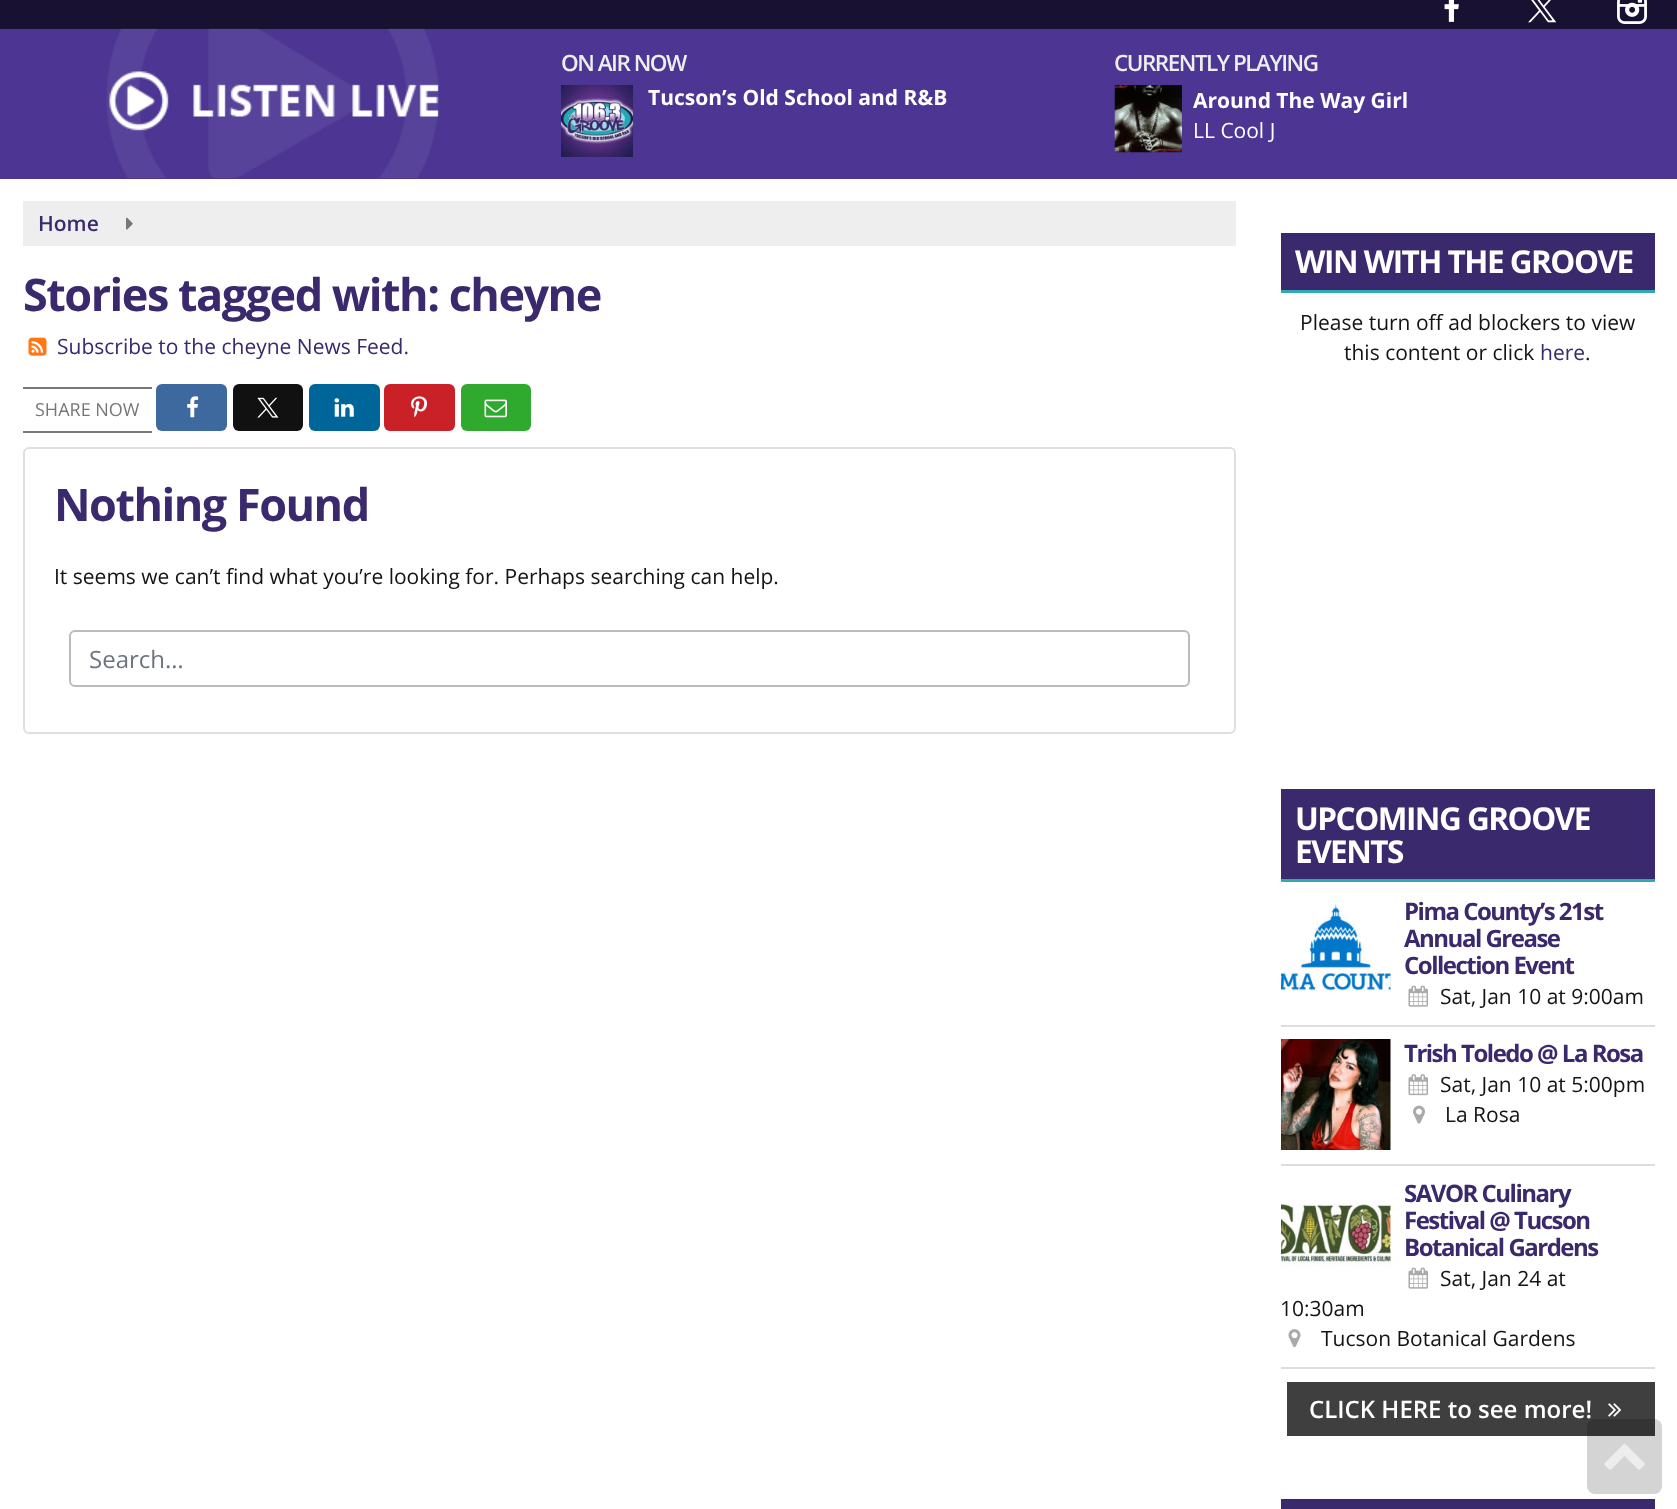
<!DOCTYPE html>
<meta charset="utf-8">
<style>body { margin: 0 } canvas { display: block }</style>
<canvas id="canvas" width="1677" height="1509"></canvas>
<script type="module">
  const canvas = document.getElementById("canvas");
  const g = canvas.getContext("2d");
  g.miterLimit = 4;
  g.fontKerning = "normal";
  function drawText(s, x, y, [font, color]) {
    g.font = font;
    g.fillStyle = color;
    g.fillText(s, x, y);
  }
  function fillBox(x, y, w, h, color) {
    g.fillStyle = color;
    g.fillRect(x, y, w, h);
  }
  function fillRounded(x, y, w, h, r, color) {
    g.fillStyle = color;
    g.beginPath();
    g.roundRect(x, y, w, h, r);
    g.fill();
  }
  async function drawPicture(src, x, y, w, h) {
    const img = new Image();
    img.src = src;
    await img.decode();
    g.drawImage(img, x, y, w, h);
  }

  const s1 = ["600 22.5px Open Sans", "#EEEEEE"];
  const s2 = ["bold 21px Open Sans", "#FFFFFF"];
  const s3 = ["21px Open Sans", "#FFFFFF"];
  const s4 = ["600 21px Open Sans", "#3A296D"];
  const s5 = ["bold 45px Open Sans", "#3A296D"];
  const s6 = ["21px Open Sans", "#3A296D"];
  const s7 = ["18px Open Sans", "#777777"];
  const s8 = ["21px Open Sans", "#141414"];
  const s9 = ["24px Open Sans", "#6C757D"];
  const s10 = ["bold 31.5px Open Sans", "#FFFFFF"];
  const s11 = ["bold 24px Open Sans", "#3A296D"];
  const s12 = ["600 24px Open Sans", "#FFFFFF"];

  fillBox(0, 0, 1677, 1509, "#FFFFFF");
  await drawPicture("pic1.png", 0, 0, 1677, 29);
  fillBox(0, 29, 1677, 150, "#4C3593");
  await drawPicture("pic5.png", 106, 28, 333, 150);
  fillBox(0, 0, 1677, 29, "rgba(0, 0, 0, 0.41)");
  await drawPicture("pic2.png", 1444, 0, 15, 22);
  await drawPicture("pic3.png", 1528, 0, 29, 23);
  await drawPicture("pic4.png", 1617, 0, 30, 24);
  await drawPicture("pic6.png", 109, 71, 330, 60);
  g.letterSpacing = "-1.5px";
  drawText("ON AIR NOW", 561, 71, s1);
  await drawPicture("pic7.png", 561, 85, 72, 72);
  g.letterSpacing = "0px";
  drawText("Tucson’s Old School and R&B", 648, 105, s2);
  g.letterSpacing = "-1.5px";
  drawText("CURRENTLY PLAYING", 1114, 71, s1);
  await drawPicture("pic8.png", 1114, 85, 68, 68);
  g.letterSpacing = "0px";
  drawText("Around The Way Girl", 1193, 108, s2);
  drawText("LL Cool J", 1193, 138, s3);
  fillBox(23, 201, 1213, 45, "#EEEEEE");
  drawText("Home", 38, 231, s4);
  await drawPicture("pic9.png", 126, 217, 7, 13);
  g.letterSpacing = "-1.5px";
  drawText("Stories tagged with: cheyne", 23, 311, s5);
  await drawPicture("pic10.png", 28, 337, 19, 19);
  g.letterSpacing = "0px";
  drawText("Subscribe to the cheyne News Feed.", 57, 354, s6);
  fillBox(23, 387, 129, 2, "#777777");
  fillBox(23, 431, 129, 2, "#777777");
  drawText("SHARE NOW", 35, 416, s7);
  fillRounded(156, 384, 71, 47, 6, "#3D699E");
  await drawPicture("pic11.png", 187, 396, 12, 22);
  fillRounded(233, 384, 70, 47, 6, "#111111");
  await drawPicture("pic12.png", 257, 397, 22, 21);
  fillRounded(309, 384, 71, 47, 6, "#006699");
  await drawPicture("pic13.png", 334, 398, 20, 19);
  fillRounded(384, 384, 71, 47, 6, "#CA2027");
  await drawPicture("pic14.png", 411, 396, 17, 22);
  fillRounded(461, 384, 70, 47, 6, "#2FA92E");
  await drawPicture("pic15.png", 484, 399, 23, 19);
  g.beginPath();
  g.roundRect(24, 448, 1211, 285, 5);
  g.strokeStyle = "#DFDFDF";
  g.lineWidth = 2;
  g.stroke();
  g.letterSpacing = "-1.5px";
  drawText("Nothing Found", 54, 521, s5);
  g.letterSpacing = "0px";
  drawText("It seems we can’t find what you’re looking for. Perhaps searching can help.", 54, 584, s8);
  g.beginPath();
  g.roundRect(70, 631, 1119, 55, 5);
  g.strokeStyle = "#BBBBBB";
  g.stroke();
  drawText("Search…", 89, 668, s9);
  fillBox(1281, 233, 374, 57, "#3A296D");
  fillBox(1281, 290, 374, 3, "#31A9B2");
  g.letterSpacing = "-1.5px";
  drawText("WIN WITH THE GROOVE", 1295, 273, s10);
  g.letterSpacing = "0px";
  drawText("Please turn off ad blockers to view", 1300, 330, s8);
  drawText("this content or click", 1344, 360, s8);
  drawText("here", 1540, 360, s6);
  drawText(".", 1585, 360, s8);
  fillBox(1281, 789, 374, 90, "#3A296D");
  fillBox(1281, 879, 374, 3, "#31A9B2");
  g.letterSpacing = "-1.5px";
  drawText("UPCOMING GROOVE", 1295, 830, s10);
  drawText("EVENTS", 1295, 863, s10);
  fillBox(1281, 1025, 374, 2, "#DDDDDD");
  await drawPicture("pic16.png", 1281, 903, 110, 88);
  drawText("Pima County’s 21st", 1404, 920, s11);
  drawText("Annual Grease", 1404, 947, s11);
  drawText("Collection Event", 1404, 974, s11);
  await drawPicture("pic17.png", 1408, 985, 20, 22);
  g.letterSpacing = "0px";
  drawText("Sat, Jan 10 at 9:00am", 1440, 1004, s8);
  fillBox(1281, 1164, 374, 2, "#DDDDDD");
  await drawPicture("pic18.png", 1281, 1039, 110, 111);
  g.letterSpacing = "-1.5px";
  drawText("Trish Toledo @ La Rosa", 1404, 1062, s11);
  await drawPicture("pic19.png", 1408, 1074, 20, 22);
  g.letterSpacing = "0px";
  drawText("Sat, Jan 10 at 5:00pm", 1440, 1092, s8);
  await drawPicture("pic20.png", 1413, 1105, 12, 19);
  drawText("La Rosa", 1445, 1122, s8);
  fillBox(1281, 1367, 374, 2, "#DDDDDD");
  g.letterSpacing = "-1.5px";
  drawText("SAVOR Culinary", 1404, 1202, s11);
  drawText("Festival @ Tucson", 1404, 1229, s11);
  drawText("Botanical Gardens", 1404, 1256, s11);
  await drawPicture("pic17.png", 1408, 1267, 20, 22);
  g.letterSpacing = "0px";
  drawText("Sat, Jan 24 at", 1440, 1286, s8);
  drawText("10:30am", 1280, 1316, s8);
  await drawPicture("pic21.png", 1288, 1329, 13, 19);
  drawText("Tucson Botanical Gardens", 1321, 1346, s8);
  await drawPicture("pic22.png", 1281, 1203, 110, 64);
  fillBox(1287, 1382, 368, 54, "#3F3F3F");
  drawText("CLICK HERE to see more!", 1309, 1418, s12);
  await drawPicture("pic23.png", 1608, 1403, 13, 14);
  fillBox(1281, 1499, 374, 10, "#3A296D");
  fillRounded(1587, 1419, 75, 75, 8, "rgba(0, 0, 0, 0.17)");
  await drawPicture("pic24.png", 1604, 1444, 41, 26);
</script>
